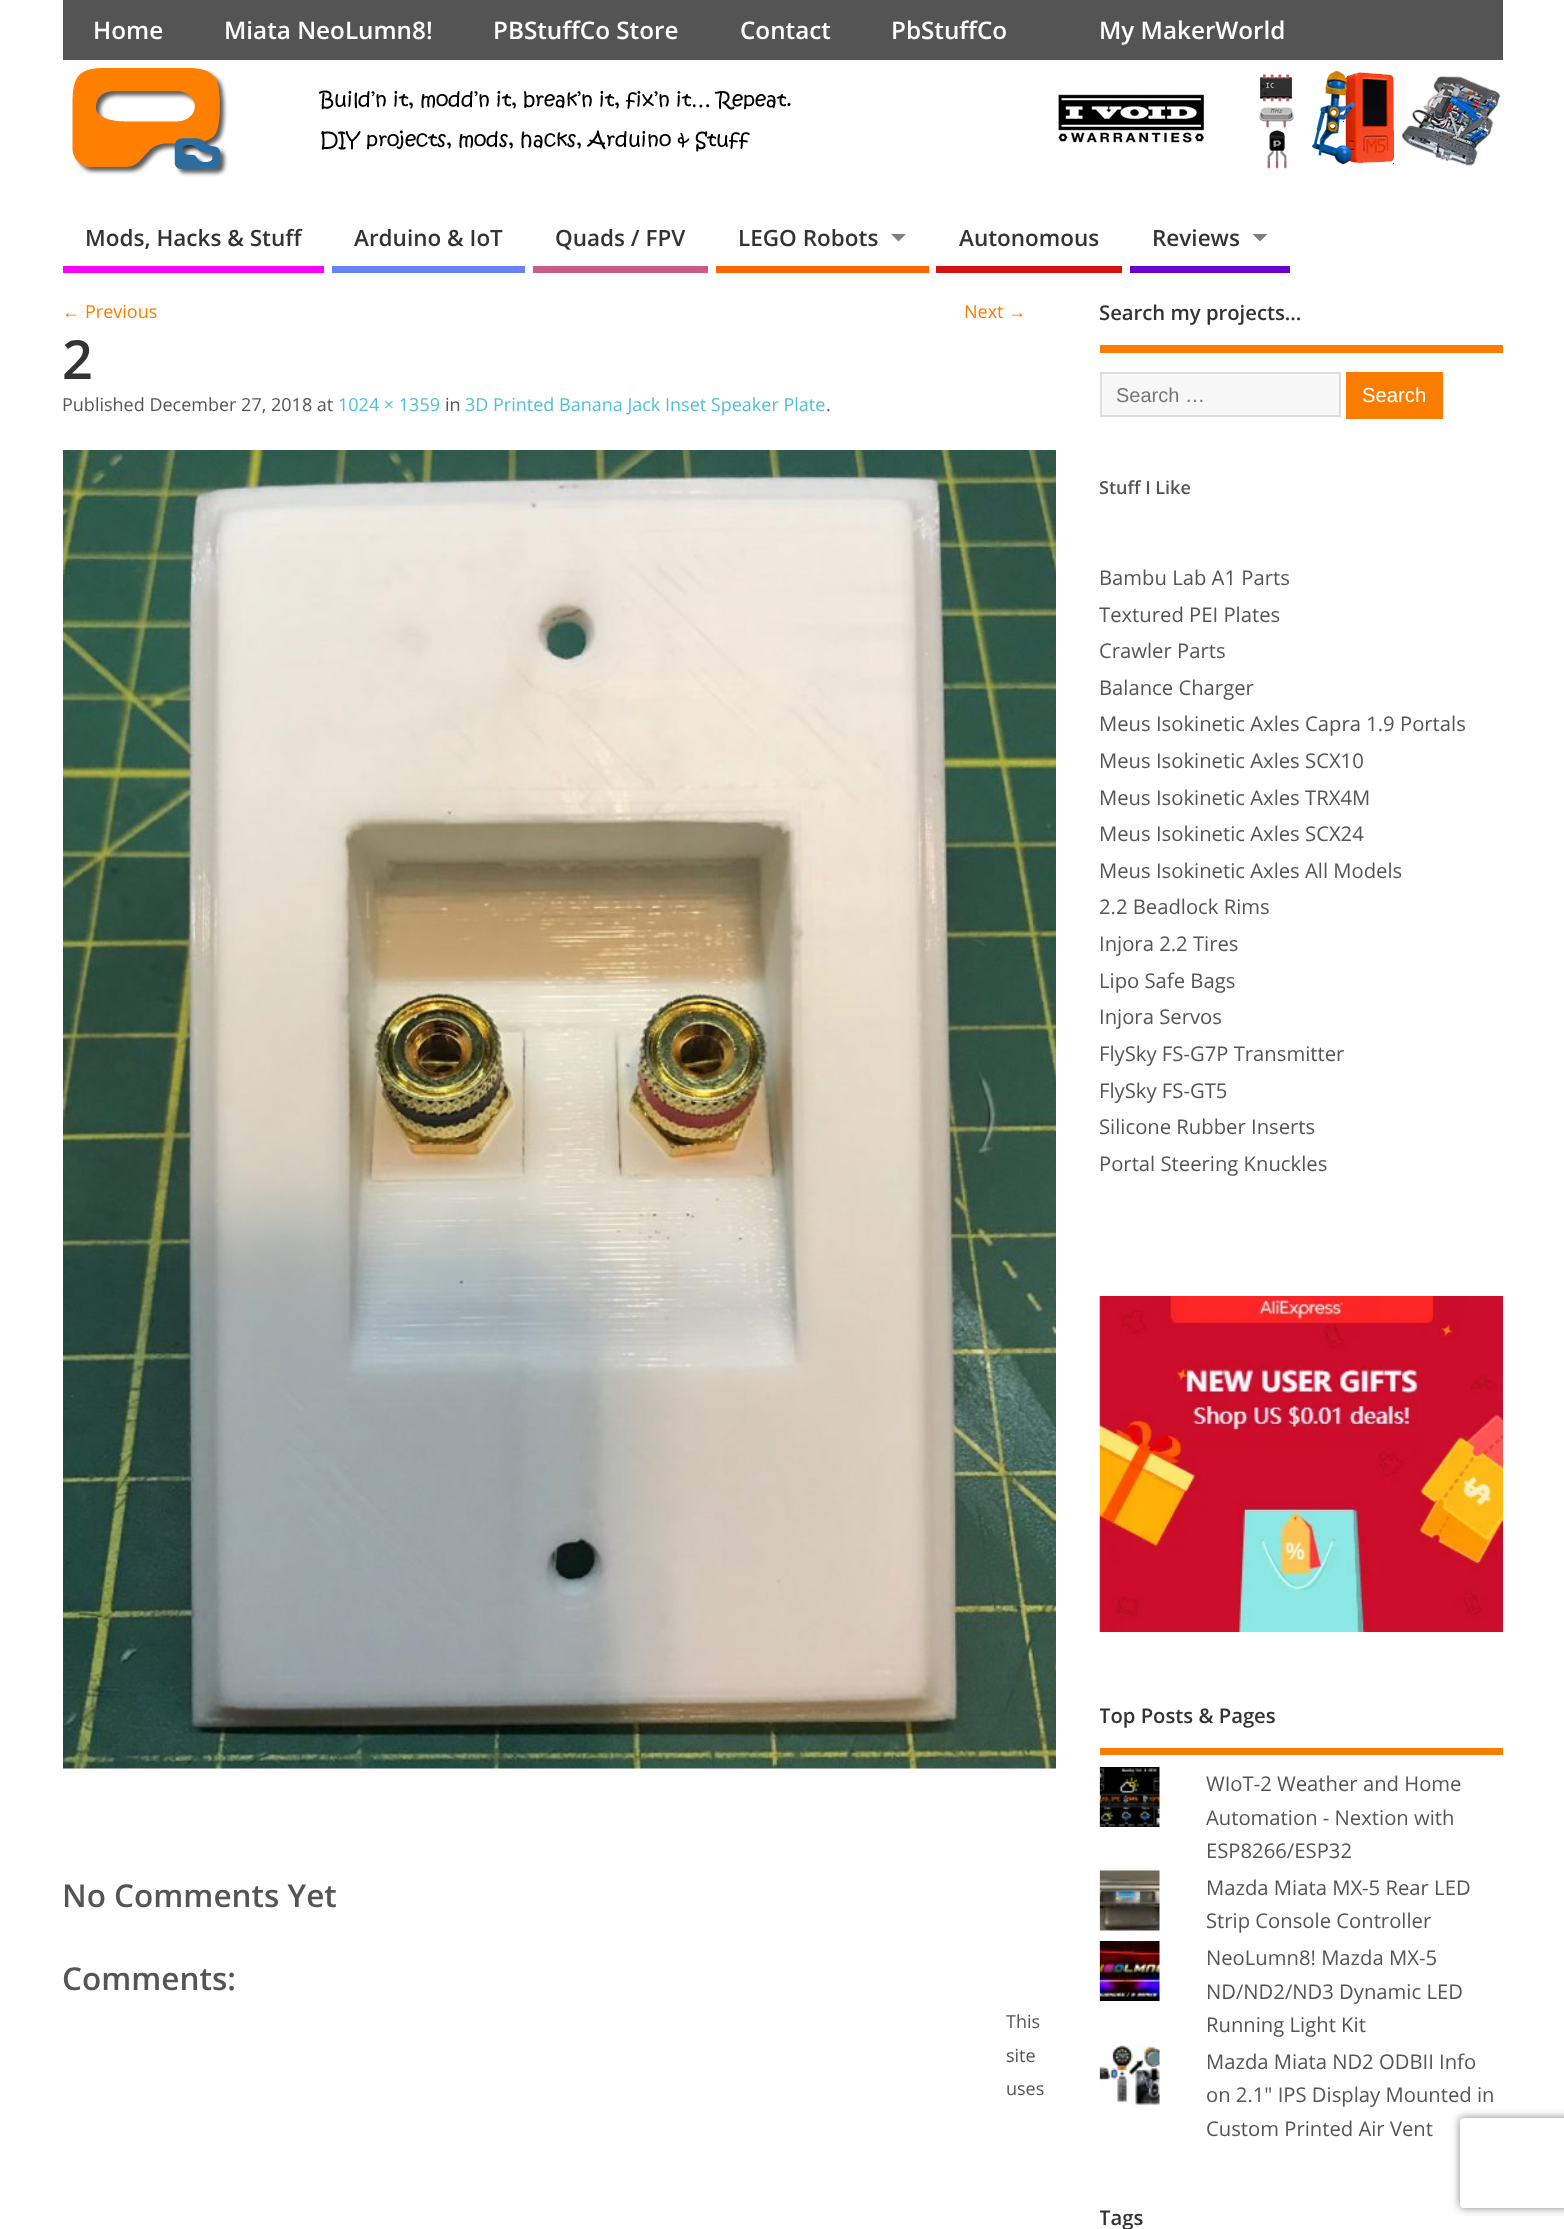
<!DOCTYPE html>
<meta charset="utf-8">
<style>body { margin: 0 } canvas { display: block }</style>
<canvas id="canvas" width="1564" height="2229"></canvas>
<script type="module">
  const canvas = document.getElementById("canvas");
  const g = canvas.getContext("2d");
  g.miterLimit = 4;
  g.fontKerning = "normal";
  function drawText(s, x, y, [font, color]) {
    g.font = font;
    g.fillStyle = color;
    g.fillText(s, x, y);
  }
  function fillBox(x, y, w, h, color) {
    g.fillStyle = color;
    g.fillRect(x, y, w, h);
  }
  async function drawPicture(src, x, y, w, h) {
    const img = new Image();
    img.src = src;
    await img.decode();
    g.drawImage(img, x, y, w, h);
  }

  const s1 = ["600 24.25px Open Sans", "#FFFFFF"];
  const s2 = ["600 22.5px Open Sans", "#333333"];
  const s3 = ["18px Liberation Sans", "#FA7D00"];
  const s4 = ["18px Open Sans", "#FA7D00"];
  const s5 = ["600 54px Open Sans", "#333333"];
  const s6 = ["18px Open Sans", "#555555"];
  const s7 = ["18px Open Sans", "#52C0D4"];
  const s8 = ["600 31.5px Open Sans", "#555555"];
  const s9 = ["600 20.25px Open Sans", "#333333"];
  const s10 = ["20px Liberation Sans", "#757575"];
  const s11 = ["20.25px Liberation Sans", "#FFFFFF"];
  const s12 = ["600 18px Open Sans", "#555555"];
  const s13 = ["20.25px Open Sans", "#555555"];

  fillBox(0, 0, 1564, 2229, "#FFFFFF");
  fillBox(63, 0, 1440, 60, "#545454");
  drawText("Home", 93, 39, s1);
  drawText("Miata NeoLumn8!", 224, 39, s1);
  drawText("PBStuffCo Store", 493, 39, s1);
  drawText("Contact", 740, 39, s1);
  drawText("PbStuffCo", 891, 39, s1);
  drawText("My MakerWorld", 1099, 39, s1);
  await drawPicture("pic1.png", 65, 60, 1436, 117);
  fillBox(63, 266, 261, 7, "#FF00FF");
  drawText("Mods, Hacks & Stuff", 85, 246, s2);
  fillBox(332, 266, 193, 7, "#6682FF");
  drawText("Arduino & IoT", 354, 246, s2);
  fillBox(533, 266, 175, 7, "#C65C87");
  drawText("Quads / FPV", 555, 246, s2);
  fillBox(716, 266, 213, 7, "#FF6600");
  drawText("LEGO Robots", 738, 246, s2);
  g.fillStyle = "#808080";
  g.beginPath();
  g.moveTo(891, 234);
  g.lineTo(906, 234);
  g.lineTo(898.5, 241.5);
  g.closePath();
  g.fill();
  fillBox(936, 266, 186, 7, "#D41212");
  drawText("Autonomous", 959, 246, s2);
  fillBox(1130, 266, 160, 7, "#6A00D0");
  drawText("Reviews", 1152, 246, s2);
  g.fillStyle = "#808080";
  g.beginPath();
  g.moveTo(1252.5, 234);
  g.lineTo(1267.5, 234);
  g.lineTo(1260, 241.5);
  g.closePath();
  g.fill();
  drawText("←", 62, 318, s3);
  drawText("Previous", 85, 318, s4);
  drawText("Next", 964, 318, s4);
  drawText("→", 1008, 318, s3);
  drawText("2", 62, 379, s5);
  drawText("Published December 27, 2018 at", 62, 411, s6);
  drawText("1024 × 1359", 338, 411, s7);
  drawText("in", 445, 411, s6);
  drawText("3D Printed Banana Jack Inset Speaker Plate", 465, 411, s7);
  drawText(".", 826, 411, s6);
  await drawPicture("pic2.png", 63, 450, 993, 1319);
  drawText("No Comments Yet", 62, 1907, s8);
  drawText("Comments:", 62, 1990, s8);
  drawText("This", 1006, 2028, s6);
  drawText("site", 1006, 2062, s6);
  drawText("uses", 1006, 2095, s6);
  fillBox(1100, 345, 403, 8, "#FA7D00");
  drawText("Search my projects…", 1099, 320, s9);
  g.fillStyle = "#F7F7F7";
  g.beginPath();
  g.rect(1101, 373, 239, 43);
  g.fill();
  g.strokeStyle = "#DDDDDD";
  g.lineWidth = 2;
  g.stroke();
  drawText("Search …", 1116, 402, s10);
  fillBox(1346, 372, 97, 47, "#FA7D00");
  drawText("Search", 1362, 402, s11);
  drawText("Stuff I Like", 1099, 494, s12);
  drawText("Bambu Lab A1 Parts", 1099, 585, s13);
  drawText("Textured PEI Plates", 1099, 622, s13);
  drawText("Crawler Parts", 1099, 658, s13);
  drawText("Balance Charger", 1099, 695, s13);
  drawText("Meus Isokinetic Axles Capra 1.9 Portals", 1099, 731, s13);
  drawText("Meus Isokinetic Axles SCX10", 1099, 768, s13);
  drawText("Meus Isokinetic Axles TRX4M", 1099, 805, s13);
  drawText("Meus Isokinetic Axles SCX24", 1099, 841, s13);
  drawText("Meus Isokinetic Axles All Models", 1099, 878, s13);
  drawText("2.2 Beadlock Rims", 1099, 914, s13);
  drawText("Injora 2.2 Tires", 1099, 951, s13);
  drawText("Lipo Safe Bags", 1099, 988, s13);
  drawText("Injora Servos", 1099, 1024, s13);
  drawText("FlySky FS-G7P Transmitter", 1099, 1061, s13);
  drawText("FlySky FS-GT5", 1099, 1098, s13);
  drawText("Silicone Rubber Inserts", 1099, 1134, s13);
  drawText("Portal Steering Knuckles", 1099, 1171, s13);
  await drawPicture("pic3.png", 1099, 1296, 404, 336);
  fillBox(1100, 1748, 403, 7, "#FA7D00");
  g.save();
  g.beginPath();
  g.rect(1100, 296, 403, 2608);
  g.clip();
  drawText("Top Posts & Pages", 1099, 1723, s9);
  g.restore();
  await drawPicture("pic4.png", 1099, 1767, 61, 60);
  drawText("WIoT-2 Weather and Home", 1206, 1791, s13);
  drawText("Automation - Nextion with", 1206, 1825, s13);
  drawText("ESP8266/ESP32", 1206, 1858, s13);
  await drawPicture("pic5.png", 1099, 1870, 61, 61);
  drawText("Mazda Miata MX-5 Rear LED", 1206, 1895, s13);
  drawText("Strip Console Controller", 1206, 1928, s13);
  await drawPicture("pic6.png", 1099, 1941, 61, 60);
  drawText("NeoLumn8! Mazda MX-5", 1206, 1965, s13);
  drawText("ND/ND2/ND3 Dynamic LED", 1206, 1999, s13);
  drawText("Running Light Kit", 1206, 2032, s13);
  await drawPicture("pic7.png", 1099, 2044, 61, 61);
  drawText("Mazda Miata ND2 ODBII Info", 1206, 2069, s13);
  drawText("on 2.1\" IPS Display Mounted in", 1206, 2102, s13);
  drawText("Custom Printed Air Vent", 1206, 2136, s13);
  g.save();
  g.beginPath();
  g.rect(1100, 296, 403, 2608);
  g.clip();
  drawText("Tags", 1099, 2225, s9);
  g.restore();
  g.save();
  g.beginPath();
  g.moveTo(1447, 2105);
  g.lineTo(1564, 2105);
  g.lineTo(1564, 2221);
  g.lineTo(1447, 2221);
  g.closePath();
  g.moveTo(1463, 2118);
  g.lineTo(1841, 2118);
  g.bezierCurveTo(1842.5, 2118, 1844, 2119.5, 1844, 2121);
  g.lineTo(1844, 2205);
  g.bezierCurveTo(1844, 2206.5, 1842.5, 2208, 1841, 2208);
  g.lineTo(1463, 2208);
  g.bezierCurveTo(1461.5, 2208, 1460, 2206.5, 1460, 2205);
  g.lineTo(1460, 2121);
  g.bezierCurveTo(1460, 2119.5, 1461.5, 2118, 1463, 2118);
  g.closePath();
  g.clip("evenodd");
  g.fillStyle = "#808080";
  g.filter = "blur(4px)";
  g.beginPath();
  g.roundRect(1460, 2118, 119, 90, 3);
  g.fill();
  g.filter = "none";
  g.restore();
</script>
